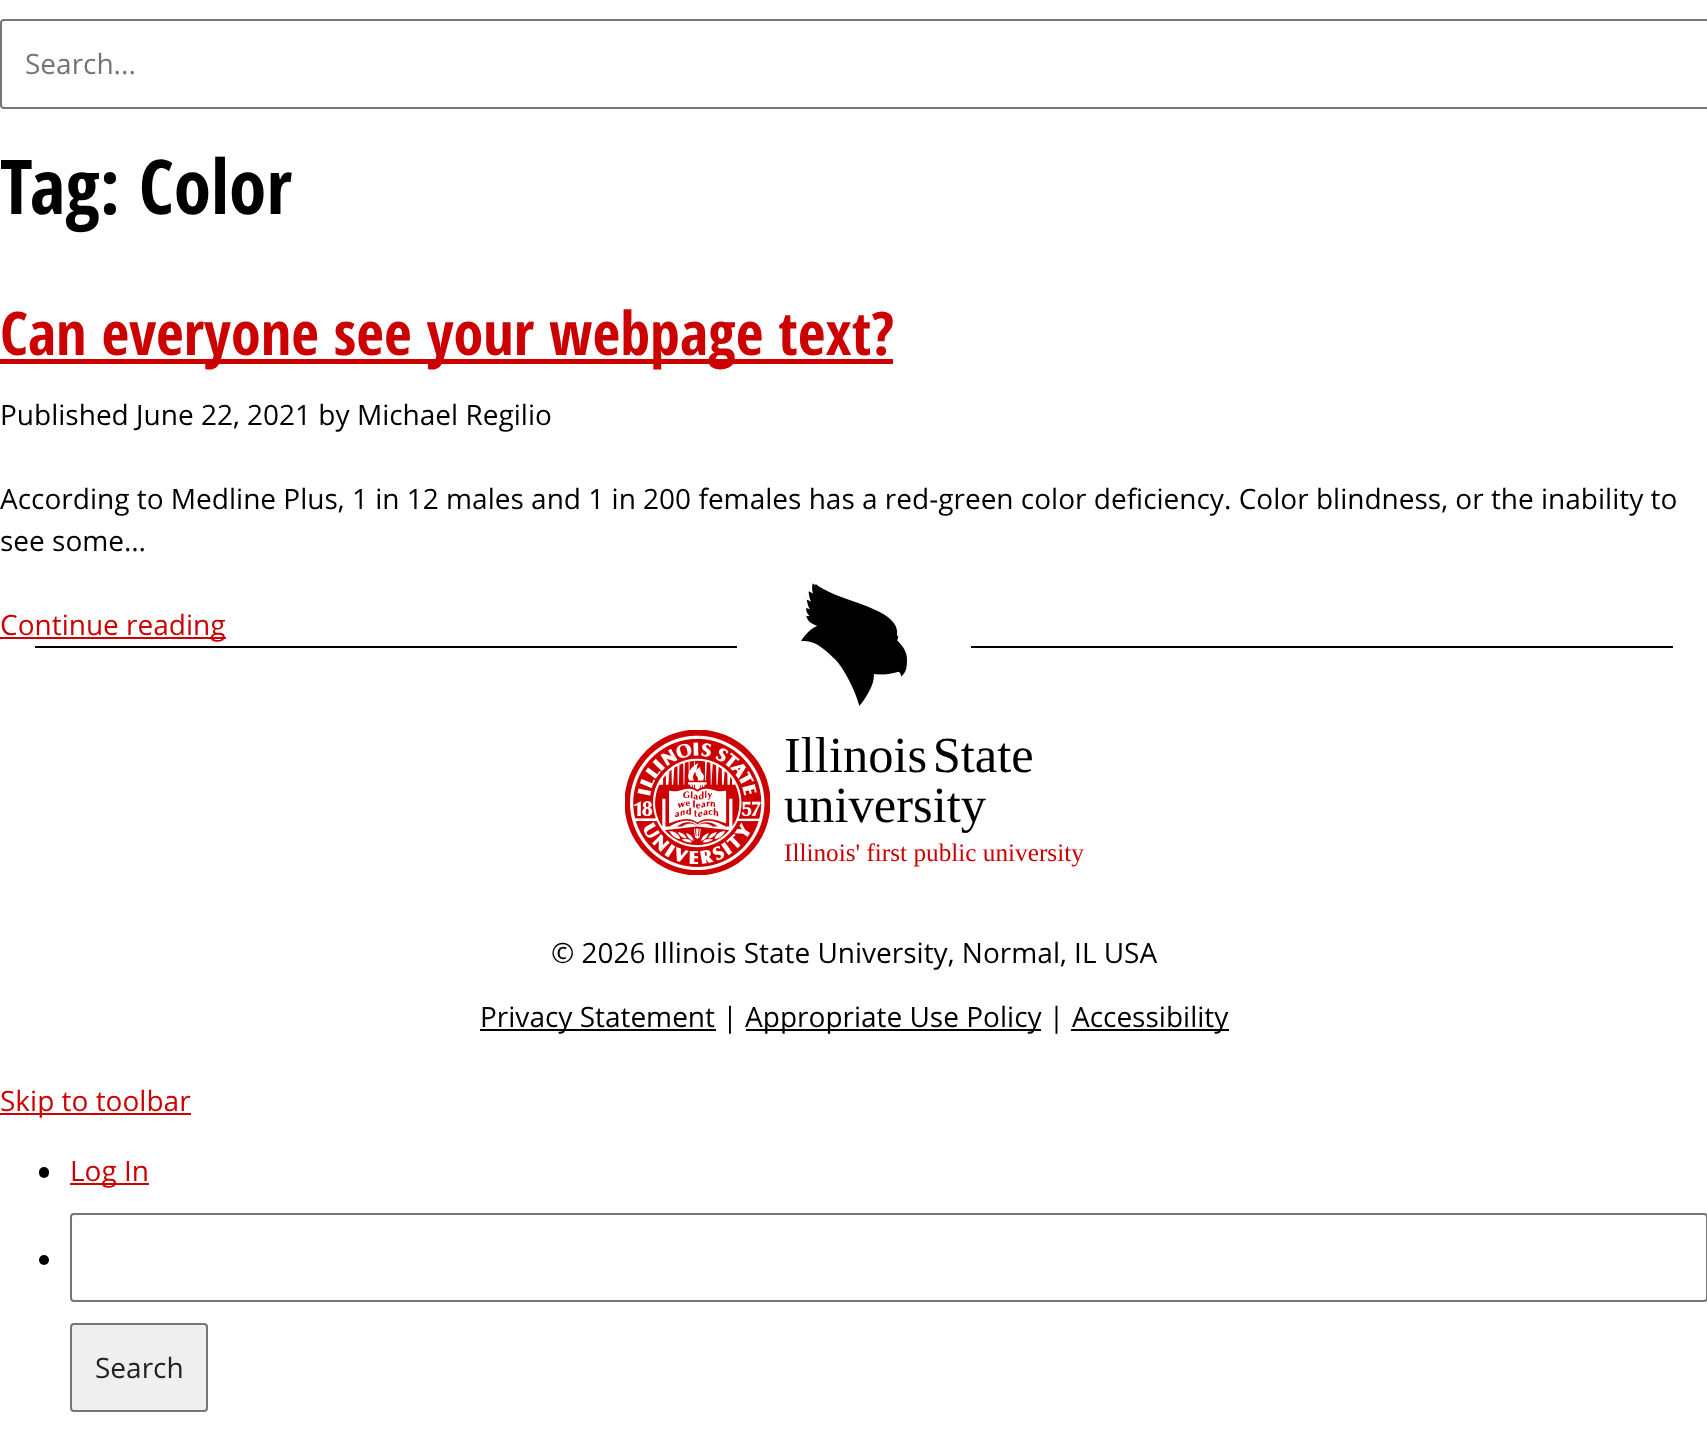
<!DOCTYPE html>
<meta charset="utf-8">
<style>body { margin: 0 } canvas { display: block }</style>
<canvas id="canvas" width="1707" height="1439"></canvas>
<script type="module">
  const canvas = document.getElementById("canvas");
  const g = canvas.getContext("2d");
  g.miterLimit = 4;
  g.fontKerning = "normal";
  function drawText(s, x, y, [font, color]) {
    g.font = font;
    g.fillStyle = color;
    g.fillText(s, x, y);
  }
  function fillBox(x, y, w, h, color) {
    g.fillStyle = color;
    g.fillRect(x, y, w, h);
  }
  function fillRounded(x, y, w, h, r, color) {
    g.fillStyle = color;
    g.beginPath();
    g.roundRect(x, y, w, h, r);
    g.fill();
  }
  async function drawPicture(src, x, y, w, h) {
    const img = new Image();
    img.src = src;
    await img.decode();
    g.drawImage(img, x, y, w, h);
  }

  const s1 = ["28px Open Sans", "#757575"];
  const s2 = ["bold 75.5px Open Sans Condensed", "#000000"];
  const s3 = ["bold 60.25px Open Sans Condensed", "#CC0000"];
  const s4 = ["28px Open Sans", "#000000"];
  const s5 = ["28px Open Sans", "#CC0000"];
  const s6 = ["50.5px Liberation Serif", "#000000"];
  const s7 = ["25.25px Liberation Serif", "#CC0000"];
  const s8 = ["28px Open Sans", "#222222"];

  fillBox(0, 0, 1707, 1439, "#FFFFFF");
  g.beginPath();
  g.roundRect(1, 20, 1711, 88, 3);
  g.strokeStyle = "#767676";
  g.lineWidth = 2;
  g.stroke();
  drawText("Search...", 25, 74, s1);
  drawText("Tag: Color", 0, 214, s2);
  fillBox(0, 359, 893, 5, "#CC0000");
  drawText("Can everyone see your webpage text?", 0, 355, s3);
  drawText("Published June 22, 2021 by Michael Regilio", 0, 425, s4);
  drawText("According to Medline Plus, 1 in 12 males and 1 in 200 females has a red-green color deficiency. Color blindness, or the inability to", 0, 509, s4);
  drawText("see some…", 0, 551, s4);
  fillBox(0, 637, 226, 2, "#CC0000");
  drawText("Continue reading", 0, 635, s5);
  fillBox(35, 646, 1638, 2, "#000000");
  fillBox(737, 646, 234, 2, "#FFFFFF");
  await drawPicture("pic1.png", 801, 583, 106, 123);
  g.save();
  g.beginPath();
  g.rect(625, 730, 145, 145);
  g.clip();
  g.fillStyle = "#CC0000";
  g.beginPath();
  g.arc(697.5, 802.5, 73, 0, Math.PI * 2);
  g.fill();
  g.restore();
  await drawPicture("pic2.png", 630, 735, 135, 135);
  g.wordSpacing = "-7px";
  drawText("Illinois State", 784, 772, s6);
  g.wordSpacing = "0px";
  drawText("university", 784, 822, s6);
  drawText("Illinois' first public university", 784, 861, s7);
  drawText("© 2026 Illinois State University, Normal, IL USA", 551, 963, s4);
  fillBox(480, 1029, 236, 2, "#000000");
  drawText("Privacy Statement |", 480, 1027, s4);
  fillBox(746, 1029, 295, 2, "#000000");
  drawText("Appropriate Use Policy |", 745, 1027, s4);
  fillBox(1071, 1029, 158, 2, "#000000");
  drawText("Accessibility", 1072, 1027, s4);
  fillBox(0, 1113, 191, 2, "#CC0000");
  drawText("Skip to toolbar", 0, 1111, s5);
  fillRounded(39, 1167, 10, 11, 5, "#000000");
  fillBox(70, 1183, 79, 2, "#CC0000");
  drawText("Log In", 70, 1181, s5);
  g.fillStyle = "#000000";
  g.beginPath();
  g.arc(44, 1260, 5, 0, Math.PI * 2);
  g.fill();
  g.beginPath();
  g.roundRect(71, 1214, 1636, 87, 3);
  g.stroke();
  g.fillStyle = "#EFEFEF";
  g.beginPath();
  g.roundRect(71, 1324, 136, 87, 3);
  g.fill();
  g.stroke();
  drawText("Search", 95, 1378, s8);
</script>
